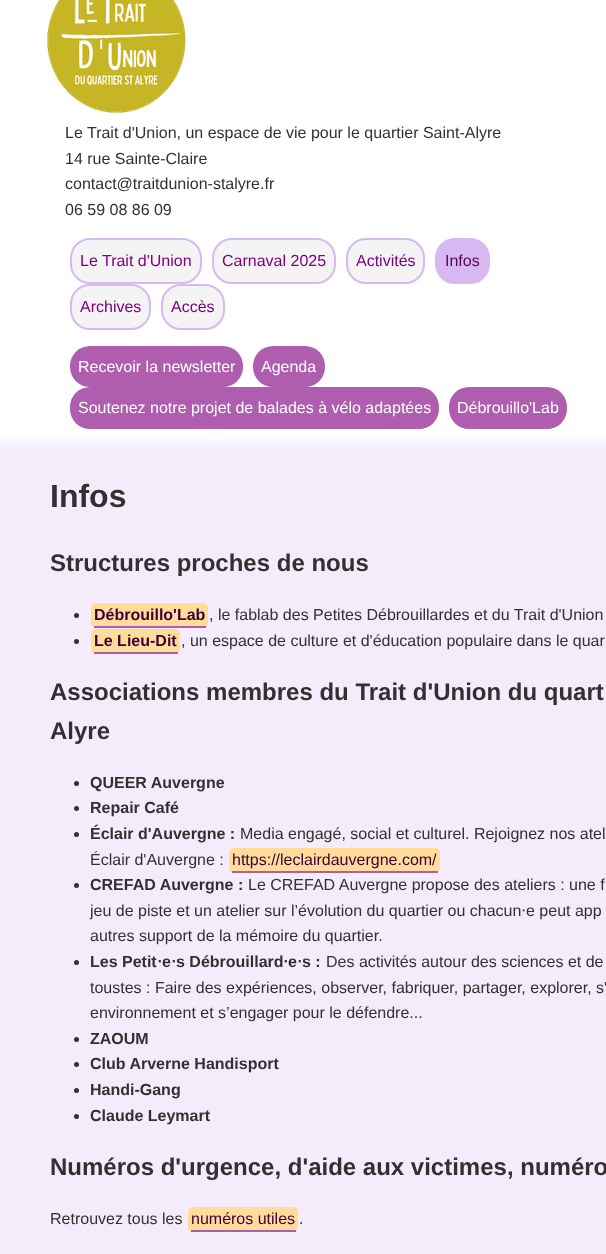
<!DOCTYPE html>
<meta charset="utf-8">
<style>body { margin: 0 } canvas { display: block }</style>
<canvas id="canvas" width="606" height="1254"></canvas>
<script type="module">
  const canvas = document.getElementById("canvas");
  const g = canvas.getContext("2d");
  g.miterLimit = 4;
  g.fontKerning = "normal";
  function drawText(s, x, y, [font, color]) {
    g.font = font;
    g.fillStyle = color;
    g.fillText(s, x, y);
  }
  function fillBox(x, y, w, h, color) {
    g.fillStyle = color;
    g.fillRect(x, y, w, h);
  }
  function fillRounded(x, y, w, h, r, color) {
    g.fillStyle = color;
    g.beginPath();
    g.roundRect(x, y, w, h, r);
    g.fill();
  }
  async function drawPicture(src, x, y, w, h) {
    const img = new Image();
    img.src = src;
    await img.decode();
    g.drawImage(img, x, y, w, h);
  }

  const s1 = ["16px Liberation Sans", "#313131"];
  const s2 = ["16px Liberation Sans", "#800080"];
  const s3 = ["16px Liberation Sans", "#5B035B"];
  const s4 = ["16px Liberation Sans", "#FFFFFF"];
  const s5 = ["bold 32px Liberation Sans", "#313131"];
  const s6 = ["bold 24px Liberation Sans", "#313131"];
  const s7 = ["bold 16px Liberation Sans", "#380138"];
  const s8 = ["bold 16px Liberation Sans", "#313131"];
  const s9 = ["16px Liberation Sans", "#380138"];
  const s10 = ["16px DejaVu Sans", "#313131"];
  const s11 = ["bold 16px DejaVu Sans", "#313131"];

  fillBox(0, 0, 606, 1254, "#FFFFFF");
  await drawPicture("pic1.png", 47, 0, 139, 113);
  drawText("Le Trait d'Union, un espace de vie pour le quartier Saint-Alyre", 65, 138, s1);
  drawText("14 rue Sainte-Claire", 65, 164, s1);
  drawText("contact@traitdunion-stalyre.fr", 65, 189, s1);
  drawText("06 59 08 86 09", 65, 215, s1);
  g.fillStyle = "#F4F4F4";
  g.beginPath();
  g.roundRect(71, 239, 130, 44, 19);
  g.fill();
  g.strokeStyle = "#D7B8F0";
  g.lineWidth = 2;
  g.stroke();
  drawText("Le Trait d'Union", 80, 266, s2);
  g.fillStyle = "#F4F4F4";
  g.beginPath();
  g.roundRect(213, 239, 122, 44, 19);
  g.fill();
  g.stroke();
  drawText("Carnaval 2025", 222, 266, s2);
  g.fillStyle = "#F4F4F4";
  g.beginPath();
  g.roundRect(347, 239, 77, 44, 19);
  g.fill();
  g.stroke();
  drawText("Activités", 356, 266, s2);
  g.fillStyle = "#D7B8F0";
  g.beginPath();
  g.roundRect(436, 239, 53, 44, 19);
  g.fill();
  g.stroke();
  drawText("Infos", 445, 266, s3);
  g.fillStyle = "#F4F4F4";
  g.beginPath();
  g.roundRect(71, 285, 79, 44, 19);
  g.fill();
  g.stroke();
  drawText("Archives", 80, 312, s2);
  g.fillStyle = "#F4F4F4";
  g.beginPath();
  g.roundRect(162, 285, 62, 44, 19);
  g.fill();
  g.stroke();
  drawText("Accès", 171, 312, s2);
  fillRounded(70, 346, 173, 41, 20, "#AF5EAF");
  drawText("Recevoir la newsletter", 78, 372, s4);
  fillRounded(253, 346, 72, 41, 20, "#AF5EAF");
  drawText("Agenda", 261, 372, s4);
  fillRounded(70, 387, 369, 42, 20, "#AF5EAF");
  drawText("Soutenez notre projet de balades à vélo adaptées", 78, 413, s4);
  fillRounded(449, 387, 118, 42, 20, "#AF5EAF");
  drawText("Débrouillo'Lab", 457, 413, s4);
  g.fillStyle = "#F4ECFB";
  g.filter = "blur(4px)";
  g.beginPath();
  g.rect(-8, 442, 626, 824);
  g.fill();
  g.filter = "none";
  drawText("Infos", 50, 507, s5);
  drawText("Structures proches de nous", 50, 571, s6);
  g.beginPath();
  g.arc(76.5, 615.5, 2.5, 0, Math.PI * 2);
  g.fill();
  fillRounded(91, 603, 117, 25, 5, "#FFDC99");
  drawText("Débrouillo'Lab", 94, 620, s7);
  fillBox(94, 626, 112, 2, "#AF5EAF");
  drawText(", le fablab des Petites Débrouillardes et du Trait d'Union", 209, 620, s1);
  g.beginPath();
  g.arc(76.5, 641.5, 2.5, 0, Math.PI * 2);
  g.fill();
  fillRounded(91, 629, 89, 25, 5, "#FFDC99");
  drawText("Le Lieu-Dit", 94, 646, s7);
  fillBox(94, 652, 84, 2, "#AF5EAF");
  drawText(", un espace de culture et d'éducation populaire dans le quar", 181, 646, s1);
  drawText("Associations membres du Trait d'Union du quart", 50, 700, s6);
  drawText("Alyre", 50, 739, s6);
  g.beginPath();
  g.arc(76.5, 783.5, 2.5, 0, Math.PI * 2);
  g.fill();
  drawText("QUEER Auvergne", 90, 788, s8);
  g.beginPath();
  g.arc(76.5, 808.5, 2.5, 0, Math.PI * 2);
  g.fill();
  drawText("Repair Café", 90, 813, s8);
  g.beginPath();
  g.arc(76.5, 834.5, 2.5, 0, Math.PI * 2);
  g.fill();
  drawText("Éclair d'Auvergne :", 90, 839, s8);
  drawText("Media engagé, social et culturel. Rejoignez nos atel", 240, 839, s1);
  drawText("Éclair d'Auvergne :", 90, 865, s1);
  fillRounded(229, 848, 211, 25, 5, "#FFDC99");
  drawText("https://leclairdauvergne.com/", 232, 865, s9);
  fillBox(232, 871, 206, 2, "#AF5EAF");
  g.fillStyle = "#313131";
  g.beginPath();
  g.arc(76.5, 885.5, 2.5, 0, Math.PI * 2);
  g.fill();
  drawText("CREFAD Auvergne :", 90, 890, s8);
  drawText("Le CREFAD Auvergne propose des ateliers : une f", 248, 890, s1);
  drawText("jeu de piste et un atelier sur l’évolution du quartier ou chacun", 90, 916, s1);
  drawText("⋅", 521, 916, s10);
  drawText("e peut app", 526, 916, s1);
  drawText("autres support de la mémoire du quartier.", 90, 941, s1);
  g.beginPath();
  g.arc(76.5, 962.5, 2.5, 0, Math.PI * 2);
  g.fill();
  drawText("Les Petit", 90, 967, s8);
  drawText("⋅", 157, 967, s11);
  drawText("e", 162, 967, s8);
  drawText("⋅", 171, 967, s11);
  drawText("s Débrouillard", 176, 967, s8);
  drawText("⋅", 283, 967, s11);
  drawText("e", 288, 967, s8);
  drawText("⋅", 297, 967, s11);
  drawText("s :", 302, 967, s8);
  drawText("Des activités autour des sciences et de", 326, 967, s1);
  drawText("toustes : Faire des expériences, observer, fabriquer, partager, explorer, s'", 90, 993, s1);
  drawText("environnement et s’engager pour le défendre...", 90, 1018, s1);
  g.beginPath();
  g.arc(76.5, 1039.5, 2.5, 0, Math.PI * 2);
  g.fill();
  drawText("ZAOUM", 90, 1044, s8);
  g.beginPath();
  g.arc(76.5, 1064.5, 2.5, 0, Math.PI * 2);
  g.fill();
  drawText("Club Arverne Handisport", 90, 1069, s8);
  g.beginPath();
  g.arc(76.5, 1090.5, 2.5, 0, Math.PI * 2);
  g.fill();
  drawText("Handi-Gang", 90, 1095, s8);
  g.beginPath();
  g.arc(76.5, 1116.5, 2.5, 0, Math.PI * 2);
  g.fill();
  drawText("Claude Leymart", 90, 1121, s8);
  drawText("Numéros d'urgence, d'aide aux victimes, numéro", 50, 1175, s6);
  drawText("Retrouvez tous les", 50, 1224, s1);
  fillRounded(188, 1207, 110, 25, 5, "#FFDC99");
  drawText("numéros utiles", 191, 1224, s9);
  fillBox(191, 1230, 105, 2, "#AF5EAF");
  drawText(".", 299, 1224, s1);
</script>
